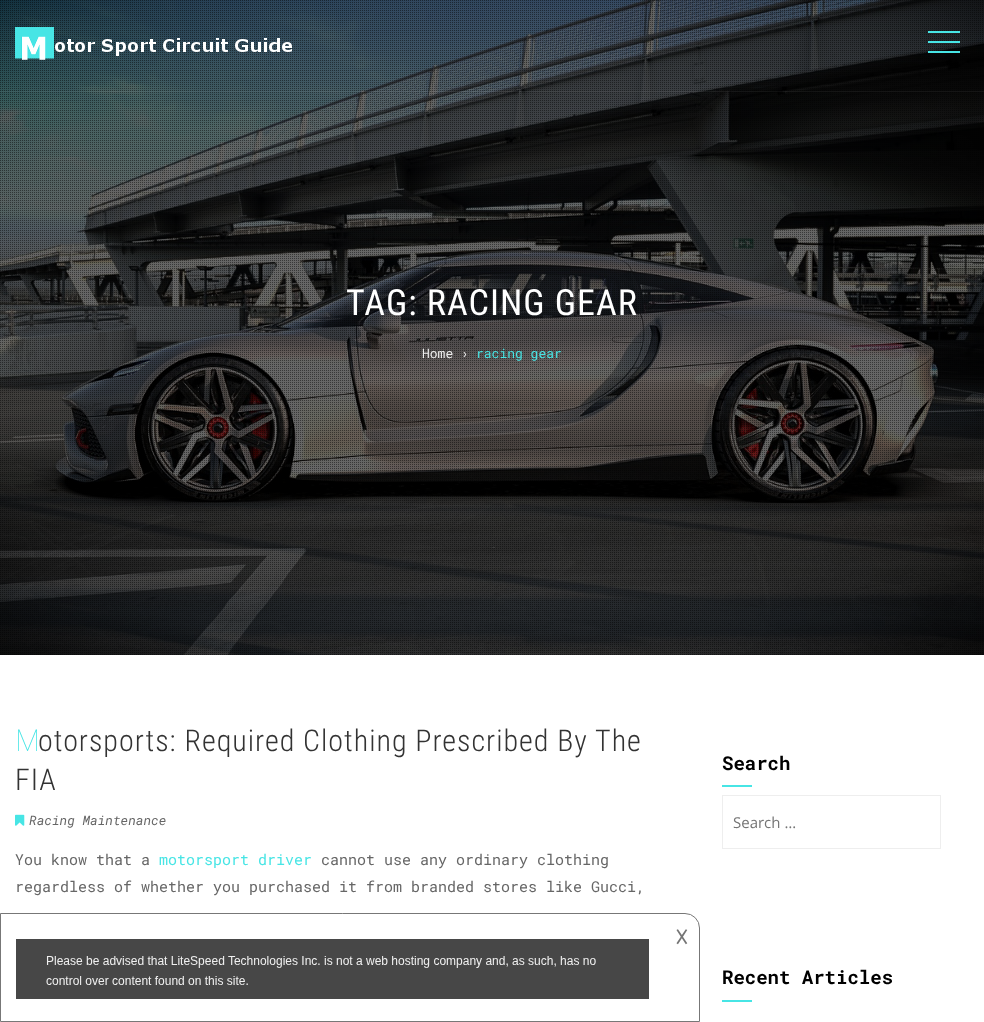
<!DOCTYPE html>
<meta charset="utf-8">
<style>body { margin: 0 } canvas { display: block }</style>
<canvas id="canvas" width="984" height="1022"></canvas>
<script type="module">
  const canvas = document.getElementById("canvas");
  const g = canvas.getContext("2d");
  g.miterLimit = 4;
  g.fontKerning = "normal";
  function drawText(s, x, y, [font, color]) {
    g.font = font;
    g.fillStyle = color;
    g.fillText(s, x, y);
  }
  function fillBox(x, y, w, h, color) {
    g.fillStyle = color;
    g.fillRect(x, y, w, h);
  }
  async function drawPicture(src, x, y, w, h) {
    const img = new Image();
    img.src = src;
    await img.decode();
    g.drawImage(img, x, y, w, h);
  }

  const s1 = ["36px Roboto Condensed", "#FFFFFF"];
  const s2 = ["13px Roboto Mono", "#EEEEEE"];
  const s3 = ["13px Roboto Mono", "#47E5E5"];
  const s4 = ["100 30px Noto Sans", "#47E5E5"];
  const s5 = ["300 30px Roboto Condensed", "#333333"];
  const s6 = ["italic 13px Roboto Mono", "#666666"];
  const s7 = ["15px Roboto Mono", "#666666"];
  const s8 = ["15px Roboto Mono", "#47E5E5"];
  const s9 = ["bold 19px Roboto Mono", "#000000"];
  const s10 = ["15px Open Sans", "#757575"];
  const s11 = ["20px DejaVu Sans", "#757575"];

  fillBox(0, 0, 984, 1022, "#FFFFFF");
  await drawPicture("pic2.png", 0, 0, 984, 655);
  await drawPicture("pic3.png", 0, 0, 984, 655);
  fillBox(0, 91, 984, 1, "rgba(255, 255, 255, 0.05)");
  await drawPicture("pic1.png", 15, 27, 277, 33);
  fillBox(928, 31, 32, 2, "#47E5E5");
  fillBox(928, 51, 32, 2, "#47E5E5");
  fillBox(928, 41, 32, 2, "#47E5E5");
  g.letterSpacing = "1px";
  drawText("TAG: RACING GEAR", 346, 315, s1);
  g.letterSpacing = "0px";
  drawText("Home ›", 422, 358, s2);
  drawText("racing gear", 476, 358, s3);
  g.letterSpacing = "1px";
  drawText("M", 15, 751, s4);
  drawText("otorsports: Required Clothing Prescribed By The", 38, 751, s5);
  drawText("FIA", 15, 790, s5);
  await drawPicture("pic4.png", 15, 814, 10, 12);
  g.letterSpacing = "0px";
  drawText("Racing Maintenance", 29, 825, s6);
  drawText("You know that a", 15, 865, s7);
  drawText("motorsport driver", 159, 865, s8);
  drawText("cannot use any ordinary clothing", 321, 865, s7);
  drawText("regardless of whether you purchased it from branded stores like Gucci,", 15, 892, s7);
  drawText("Search", 722, 770, s9);
  fillBox(722, 785, 30, 2, "#47E5E5");
  g.strokeStyle = "#EEEEEE";
  g.strokeRect(722.5, 795.5, 218, 53);
  drawText("Search …", 733, 828, s10);
  drawText("Recent Articles", 722, 984, s9);
  fillBox(722, 1000, 30, 2, "#47E5E5");
  g.beginPath();
  g.roundRect(0.5, 913.5, 699, 108, [0, 14.5, 0, 0]);
  g.strokeStyle = "#777777";
  g.stroke();
  drawText("𐌢", 675, 944, s11);
  await drawPicture("pic5.png", 16, 939, 633, 60);
</script>
